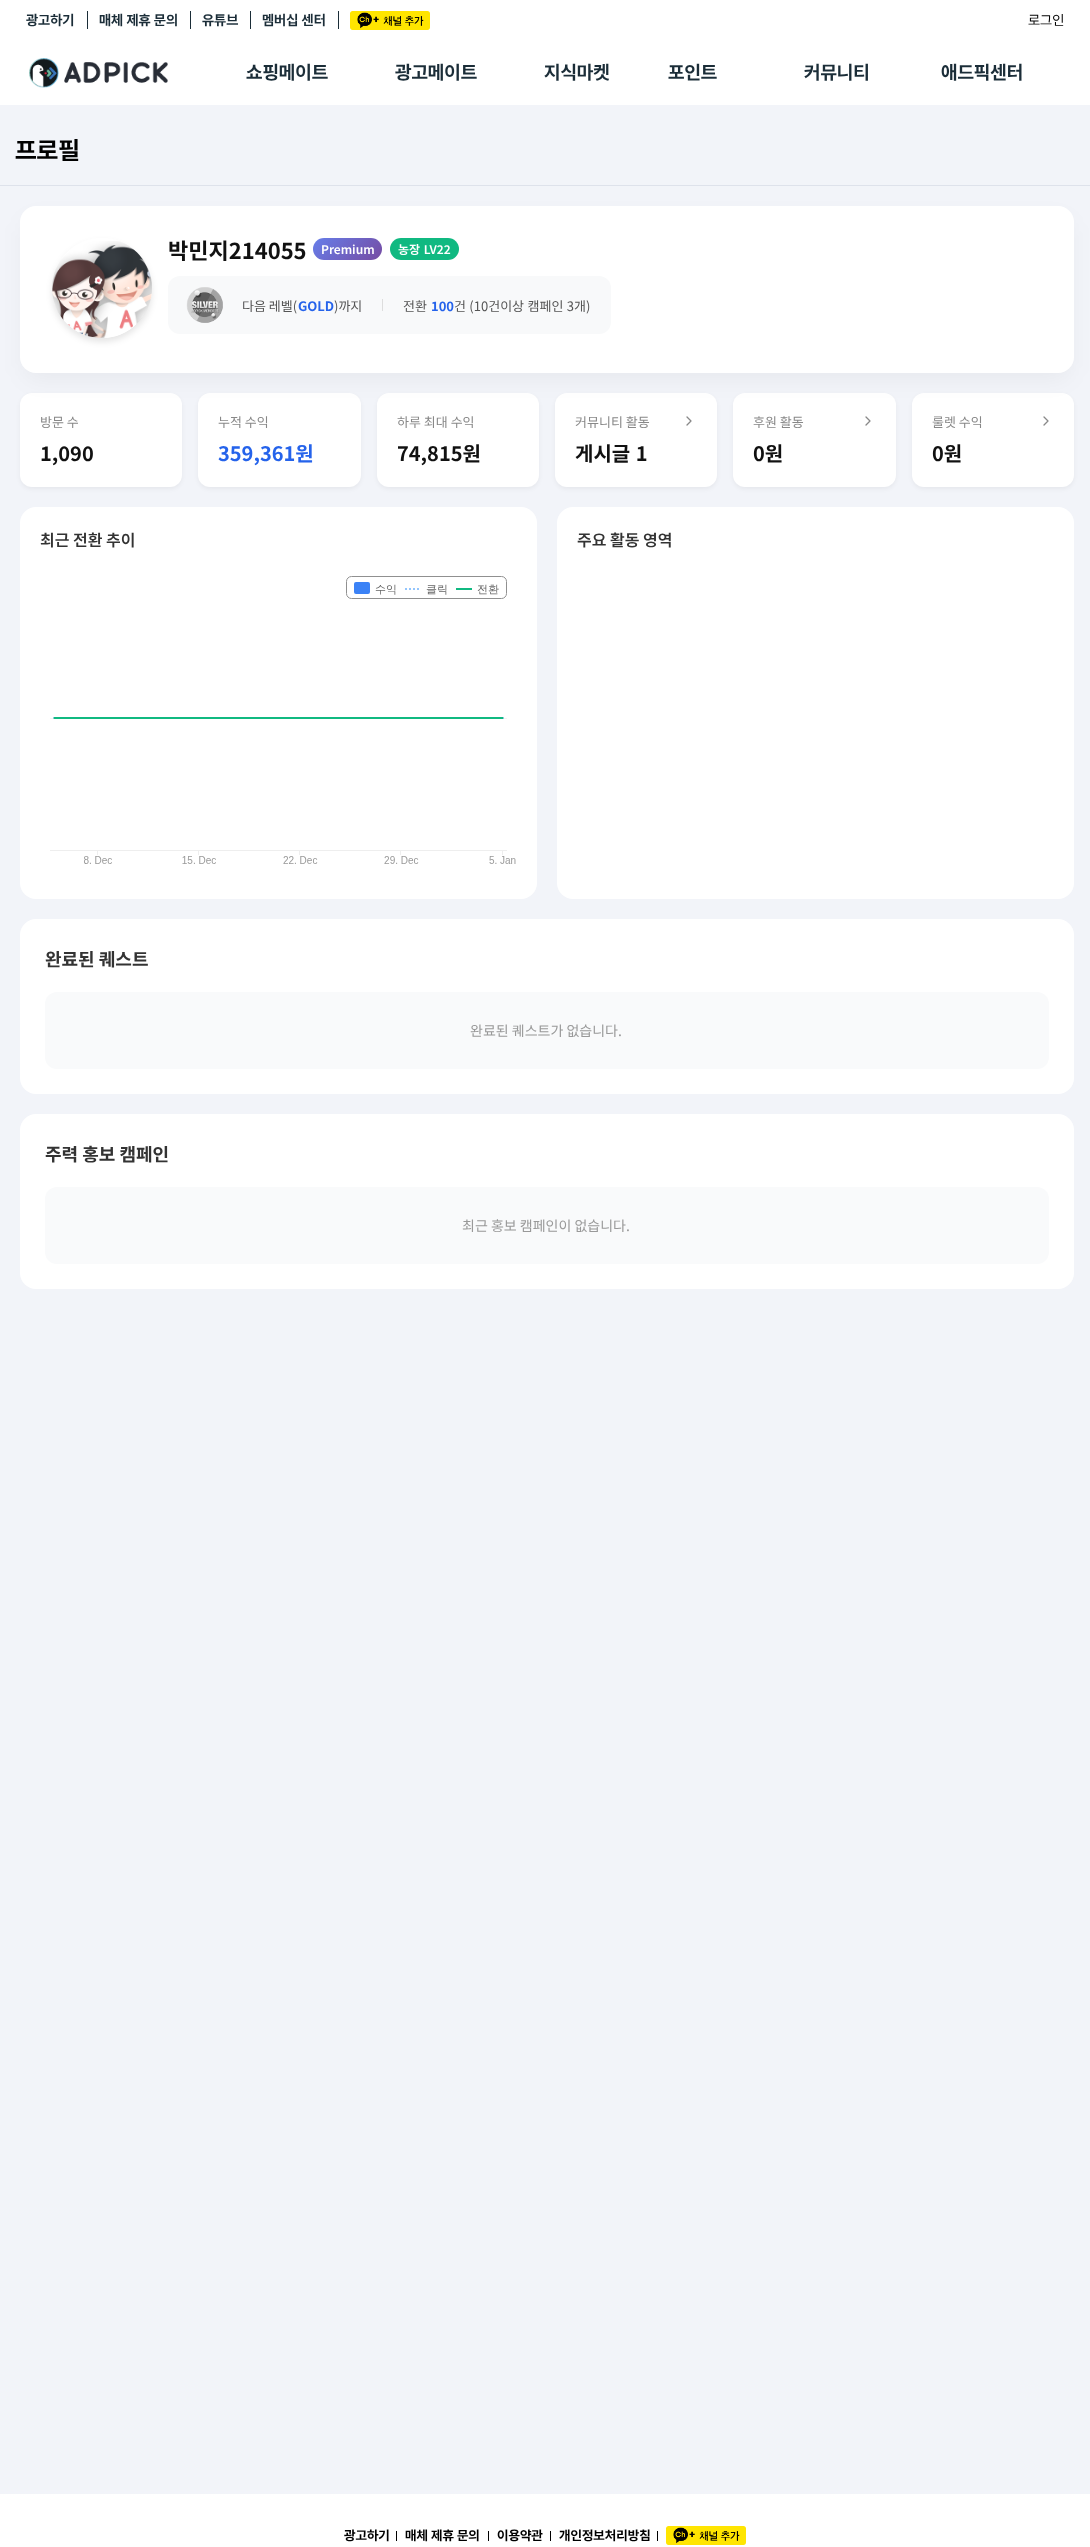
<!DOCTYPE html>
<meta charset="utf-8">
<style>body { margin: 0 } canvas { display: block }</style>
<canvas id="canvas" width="1090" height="2547"></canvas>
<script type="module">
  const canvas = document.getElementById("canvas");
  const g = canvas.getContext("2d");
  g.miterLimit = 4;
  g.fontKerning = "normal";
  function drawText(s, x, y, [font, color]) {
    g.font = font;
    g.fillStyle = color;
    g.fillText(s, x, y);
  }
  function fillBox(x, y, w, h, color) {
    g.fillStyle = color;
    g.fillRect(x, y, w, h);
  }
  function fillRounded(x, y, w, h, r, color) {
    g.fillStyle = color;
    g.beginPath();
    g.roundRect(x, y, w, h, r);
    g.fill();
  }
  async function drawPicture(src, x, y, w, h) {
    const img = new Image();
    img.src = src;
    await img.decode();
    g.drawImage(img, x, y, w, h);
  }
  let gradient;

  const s1 = ["bold 14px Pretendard", "#1B2D38"];
  const s2 = ["14px Pretendard", "#000000"];
  const s3 = ["bold 19px Pretendard", "#1B2D38"];
  const s4 = ["bold 25px Pretendard", "#000000"];
  const s5 = ["bold 22px Noto Sans KR", "#111111"];
  const s6 = ["600 12px Noto Sans KR", "#FFFFFF"];
  const s7 = ["13px Noto Sans KR", "#555555"];
  const s8 = ["bold 13px Noto Sans KR", "#2563EB"];
  const s9 = ["13px Noto Sans KR", "#888888"];
  const s10 = ["bold 20px Noto Sans KR", "#111111"];
  const s11 = ["bold 20px Noto Sans KR", "#2563EB"];
  const s12 = ["600 16px Noto Sans KR", "#333333"];
  const s13 = ["bold 18px Noto Sans KR", "#333333"];
  const s14 = ["14px Noto Sans KR", "#999999"];
  const s15 = ["bold 13.25px Pretendard", "#000000"];

  fillBox(0, 0, 1090, 2547, "#F2F4F9");
  fillBox(0, 0, 1090, 105, "#FFFFFF");
  drawText("광고하기", 26, 25, s1);
  fillBox(87, 11, 1, 18, "#1B2D38");
  drawText("매체 제휴 문의", 99, 25, s1);
  fillBox(190, 11, 1, 18, "#1B2D38");
  drawText("유튜브", 202, 25, s1);
  fillBox(250, 11, 1, 18, "#1B2D38");
  drawText("멤버십 센터", 262, 25, s1);
  fillBox(338, 11, 1, 18, "#1B2D38");
  await drawPicture("pic1.png", 350, 11, 80, 19);
  drawText("로그인", 1028, 25, s2);
  await drawPicture("pic2.png", 29, 58, 139, 30);
  drawText("쇼핑메이트", 246, 79, s3);
  drawText("광고메이트", 395, 79, s3);
  drawText("지식마켓", 544, 79, s3);
  drawText("포인트", 668, 79, s3);
  drawText("커뮤니티", 804, 79, s3);
  drawText("애드픽센터", 941, 79, s3);
  fillBox(0, 185, 1090, 1, "#DEE2EB");
  drawText("프로필", 15, 159, s4);
  g.fillStyle = "rgba(0, 0, 0, 0.05)";
  g.filter = "blur(2px)";
  g.beginPath();
  g.roundRect(20, 395, 162, 94, 12);
  g.fill();
  g.filter = "none";
  fillRounded(20, 393, 162, 94, 12, "#FFFFFF");
  g.fillStyle = "rgba(0, 0, 0, 0.05)";
  g.filter = "blur(2px)";
  g.beginPath();
  g.roundRect(198, 395, 163, 94, 12);
  g.fill();
  g.filter = "none";
  fillRounded(198, 393, 163, 94, 12, "#FFFFFF");
  g.fillStyle = "rgba(0, 0, 0, 0.05)";
  g.filter = "blur(2px)";
  g.beginPath();
  g.roundRect(377, 395, 162, 94, 12);
  g.fill();
  g.filter = "none";
  fillRounded(377, 393, 162, 94, 12, "#FFFFFF");
  g.fillStyle = "rgba(0, 0, 0, 0.05)";
  g.filter = "blur(2px)";
  g.beginPath();
  g.roundRect(555, 395, 162, 94, 12);
  g.fill();
  g.filter = "none";
  fillRounded(555, 393, 162, 94, 12, "#FFFFFF");
  g.beginPath();
  g.moveTo(687, 425);
  g.lineTo(691, 421);
  g.lineTo(687, 417);
  g.strokeStyle = "#888888";
  g.lineWidth = 1.3;
  g.lineCap = "round";
  g.lineJoin = "round";
  g.stroke();
  g.fillStyle = "rgba(0, 0, 0, 0.05)";
  g.filter = "blur(2px)";
  g.beginPath();
  g.roundRect(733, 395, 163, 94, 12);
  g.fill();
  g.filter = "none";
  fillRounded(733, 393, 163, 94, 12, "#FFFFFF");
  g.beginPath();
  g.moveTo(866, 425);
  g.lineTo(870, 421);
  g.lineTo(866, 417);
  g.stroke();
  g.fillStyle = "rgba(0, 0, 0, 0.05)";
  g.filter = "blur(2px)";
  g.beginPath();
  g.roundRect(912, 395, 162, 94, 12);
  g.fill();
  g.filter = "none";
  fillRounded(912, 393, 162, 94, 12, "#FFFFFF");
  g.beginPath();
  g.moveTo(1044, 425);
  g.lineTo(1048, 421);
  g.lineTo(1044, 417);
  g.stroke();
  g.fillStyle = "rgba(0, 0, 0, 0.05)";
  g.filter = "blur(12.5px)";
  g.beginPath();
  g.roundRect(25, 221, 1044, 157, 11);
  g.fill();
  g.filter = "none";
  fillRounded(20, 206, 1054, 167, 16, "#FFFFFF");
  g.save();
  g.beginPath();
  g.moveTo(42, 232);
  g.lineTo(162, 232);
  g.lineTo(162, 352);
  g.lineTo(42, 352);
  g.closePath();
  g.moveTo(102, 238);
  g.bezierCurveTo(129.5, 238, 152, 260.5, 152, 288);
  g.bezierCurveTo(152, 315.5, 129.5, 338, 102, 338);
  g.bezierCurveTo(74.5, 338, 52, 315.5, 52, 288);
  g.bezierCurveTo(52, 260.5, 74.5, 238, 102, 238);
  g.closePath();
  g.clip("evenodd");
  g.fillStyle = "rgba(0, 0, 0, 0.1)";
  g.filter = "blur(3px)";
  g.beginPath();
  g.roundRect(52, 242, 100, 100, 50);
  g.fill();
  g.filter = "none";
  g.restore();
  await drawPicture("pic3.png", 52, 241, 100, 97);
  drawText("박민지214055", 168, 259, s5);
  gradient = g.createLinearGradient(325, 226, 370, 272);
  gradient.addColorStop(0, "#667EEA");
  gradient.addColorStop(1, "#764BA2");
  g.fillStyle = gradient;
  g.beginPath();
  g.roundRect(313, 238, 69, 22, 11);
  g.fill();
  drawText("Premium", 321, 254, s6);
  fillRounded(390, 238, 69, 22, 11, "#10B981");
  g.wordSpacing = "1px";
  drawText("농장 LV22", 398, 254, s6);
  fillRounded(168, 276, 443, 58, 12, "#F8F9FA");
  await drawPicture("pic4.png", 186, 287, 37, 36);
  g.wordSpacing = "0px";
  drawText("다음 레벨(", 242, 311, s7);
  drawText("GOLD", 298, 311, s8);
  drawText(")까지", 334, 311, s7);
  fillBox(382, 299, 1, 12, "#DDDDDD");
  drawText("전환", 403, 311, s7);
  drawText("100", 431, 311, s8);
  g.wordSpacing = "0.5px";
  drawText("건 (10건이상 캠페인 3개)", 454, 311, s7);
  g.wordSpacing = "0px";
  drawText("방문 수", 40, 427, s9);
  drawText("1,090", 40, 461, s10);
  drawText("누적 수익", 218, 427, s9);
  drawText("359,361원", 218, 461, s11);
  drawText("하루 최대 수익", 397, 427, s9);
  drawText("74,815원", 397, 461, s10);
  drawText("커뮤니티 활동", 575, 427, s9);
  g.wordSpacing = "1px";
  drawText("게시글 1", 575, 461, s10);
  g.wordSpacing = "0px";
  drawText("후원 활동", 753, 427, s9);
  drawText("0원", 753, 461, s10);
  drawText("룰렛 수익", 932, 427, s9);
  drawText("0원", 932, 461, s10);
  fillRounded(20, 507, 517, 392, 16, "#FFFFFF");
  drawText("최근 전환 추이", 40, 546, s12);
  await drawPicture("pic5.png", 50, 576, 466, 288);
  fillRounded(557, 507, 517, 392, 16, "#FFFFFF");
  drawText("주요 활동 영역", 577, 546, s12);
  fillRounded(20, 919, 1054, 175, 16, "#FFFFFF");
  drawText("완료된 퀘스트", 45, 966, s13);
  fillRounded(45, 992, 1004, 77, 12, "#F9FAFB");
  drawText("완료된 퀘스트가 없습니다.", 470, 1036, s14);
  fillRounded(20, 1114, 1054, 175, 16, "#FFFFFF");
  drawText("주력 홍보 캠페인", 45, 1161, s13);
  fillRounded(45, 1187, 1004, 77, 12, "#F9FAFB");
  drawText("최근 홍보 캠페인이 없습니다.", 462, 1231, s14);
  fillBox(0, 2494, 1090, 53, "#FFFFFF");
  drawText("광고하기", 344, 2540, s15);
  fillBox(396, 2531, 1, 10, "#000000");
  drawText("매체 제휴 문의", 405, 2540, s15);
  fillBox(488, 2531, 1, 10, "#000000");
  drawText("이용약관", 497, 2540, s15);
  fillBox(550, 2531, 1, 10, "#000000");
  drawText("개인정보처리방침", 559, 2540, s15);
  fillBox(657, 2531, 1, 10, "#000000");
  await drawPicture("pic6.png", 666, 2526, 80, 19);
</script>
